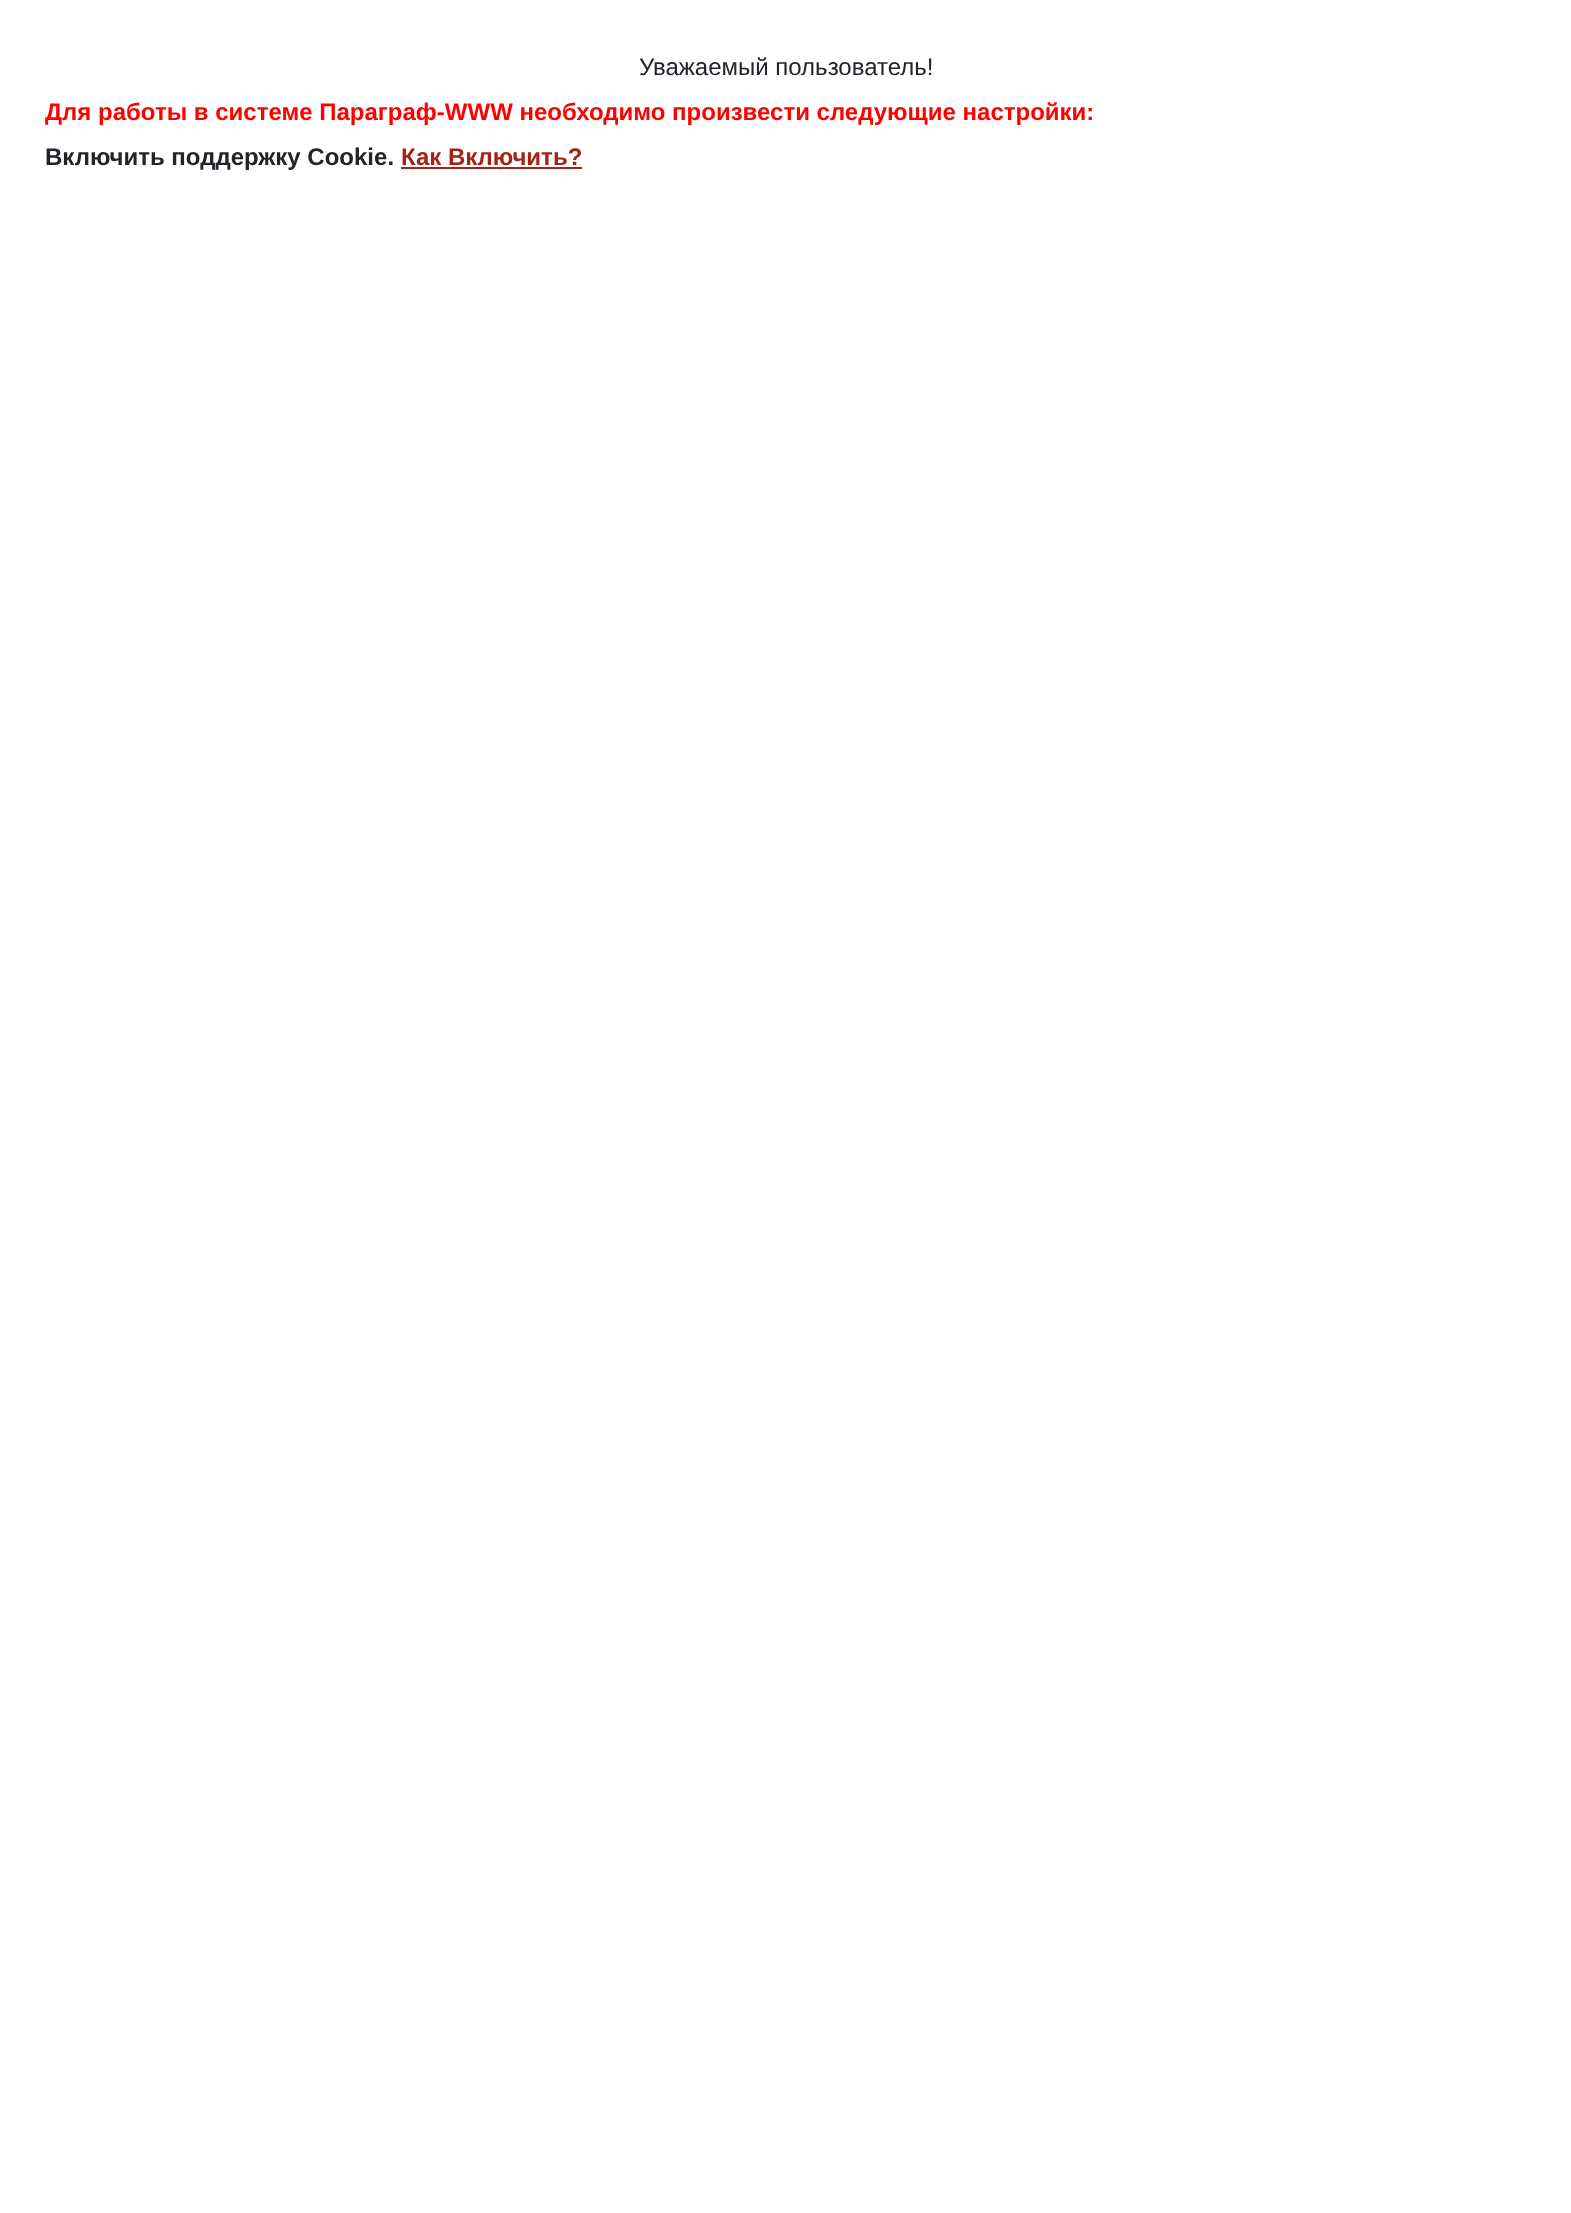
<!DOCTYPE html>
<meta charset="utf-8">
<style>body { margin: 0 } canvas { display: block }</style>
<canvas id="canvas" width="1571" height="2213"></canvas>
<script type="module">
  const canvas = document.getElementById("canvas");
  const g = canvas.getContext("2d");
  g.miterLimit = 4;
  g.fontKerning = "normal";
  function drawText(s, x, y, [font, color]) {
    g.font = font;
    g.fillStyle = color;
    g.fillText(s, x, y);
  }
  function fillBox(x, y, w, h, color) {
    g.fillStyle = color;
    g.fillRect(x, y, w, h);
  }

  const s1 = ["24px Liberation Sans", "#212529"];
  const s2 = ["bold 24px Liberation Sans", "#FF0000"];
  const s3 = ["bold 24px Liberation Sans", "#212529"];
  const s4 = ["bold 24px Liberation Sans", "#A52315"];

  fillBox(0, 0, 1571, 2213, "#FFFFFF");
  drawText("Уважаемый пользователь!", 639, 75, s1);
  drawText("Для работы в системе Параграф-WWW необходимо произвести следующие настройки:", 45, 120, s2);
  drawText("Включить поддержку Cookie.", 45, 165, s3);
  drawText("Как Включить?", 401, 165, s4);
  fillBox(401, 167, 181, 2, "#A52315");
</script>
